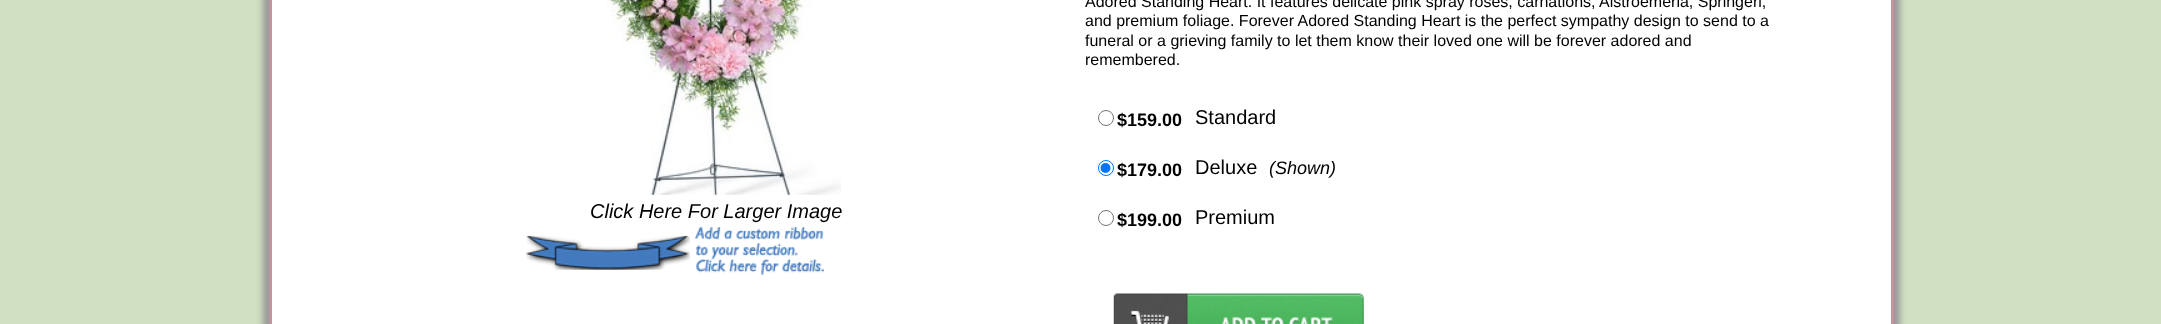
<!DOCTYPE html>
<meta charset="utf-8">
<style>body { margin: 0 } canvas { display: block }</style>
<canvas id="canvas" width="2161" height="324"></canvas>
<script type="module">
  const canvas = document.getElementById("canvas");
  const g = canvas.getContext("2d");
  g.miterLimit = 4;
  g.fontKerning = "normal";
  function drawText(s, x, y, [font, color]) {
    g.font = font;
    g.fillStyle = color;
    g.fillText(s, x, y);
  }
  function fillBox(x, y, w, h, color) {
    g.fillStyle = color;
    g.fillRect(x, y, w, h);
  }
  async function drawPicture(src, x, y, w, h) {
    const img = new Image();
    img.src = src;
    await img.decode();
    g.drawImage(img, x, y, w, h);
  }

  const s1 = ["italic 20px Liberation Sans", "#000000"];
  const s2 = ["16px Liberation Sans", "#000000"];
  const s3 = ["bold 18px Liberation Sans", "#000000"];
  const s4 = ["20px Liberation Sans", "#000000"];
  const s5 = ["italic 18px Liberation Sans", "#000000"];

  fillBox(0, 0, 2161, 324, "#D1E0C0");
  g.fillStyle = "#999999";
  g.filter = "blur(3px)";
  g.beginPath();
  g.rect(263, -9, 1637, 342);
  g.fill();
  g.filter = "none";
  g.fillStyle = "#FFFFFF";
  g.beginPath();
  g.rect(270.5, -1.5, 1622, 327);
  g.fill();
  g.strokeStyle = "#C2949D";
  g.lineWidth = 3;
  g.stroke();
  await drawPicture("pic1.png", 606, 0, 235, 195);
  drawText("Click Here For Larger Image", 590, 218, s1);
  drawText("Adored Standing Heart. It features delicate pink spray roses, carnations, Alstroemeria, Springeri,", 1085, 7, s2);
  drawText("and premium foliage. Forever Adored Standing Heart is the perfect sympathy design to send to a", 1085, 26, s2);
  drawText("funeral or a grieving family to let them know their loved one will be forever adored and", 1085, 46, s2);
  drawText("remembered.", 1085, 65, s2);
  g.beginPath();
  g.arc(1106, 118, 7.5, 0, Math.PI * 2);
  g.strokeStyle = "#767676";
  g.lineWidth = 1;
  g.stroke();
  drawText("$159.00", 1117, 126, s3);
  drawText("Standard", 1195, 124, s4);
  g.beginPath();
  g.arc(1106, 168, 7.5, 0, Math.PI * 2);
  g.strokeStyle = "#0075FF";
  g.stroke();
  g.fillStyle = "#0075FF";
  g.beginPath();
  g.arc(1105.5, 168, 5, 0, Math.PI * 2);
  g.fill();
  drawText("$179.00", 1117, 176, s3);
  drawText("Deluxe", 1195, 174, s4);
  drawText("(Shown)", 1269, 174, s5);
  g.beginPath();
  g.arc(1106, 218, 7.5, 0, Math.PI * 2);
  g.strokeStyle = "#767676";
  g.stroke();
  drawText("$199.00", 1117, 226, s3);
  drawText("Premium", 1195, 224, s4);
  await drawPicture("pic2.png", 1113, 293, 251, 31);
  await drawPicture("pic3.png", 526, 227, 298, 48);
</script>
